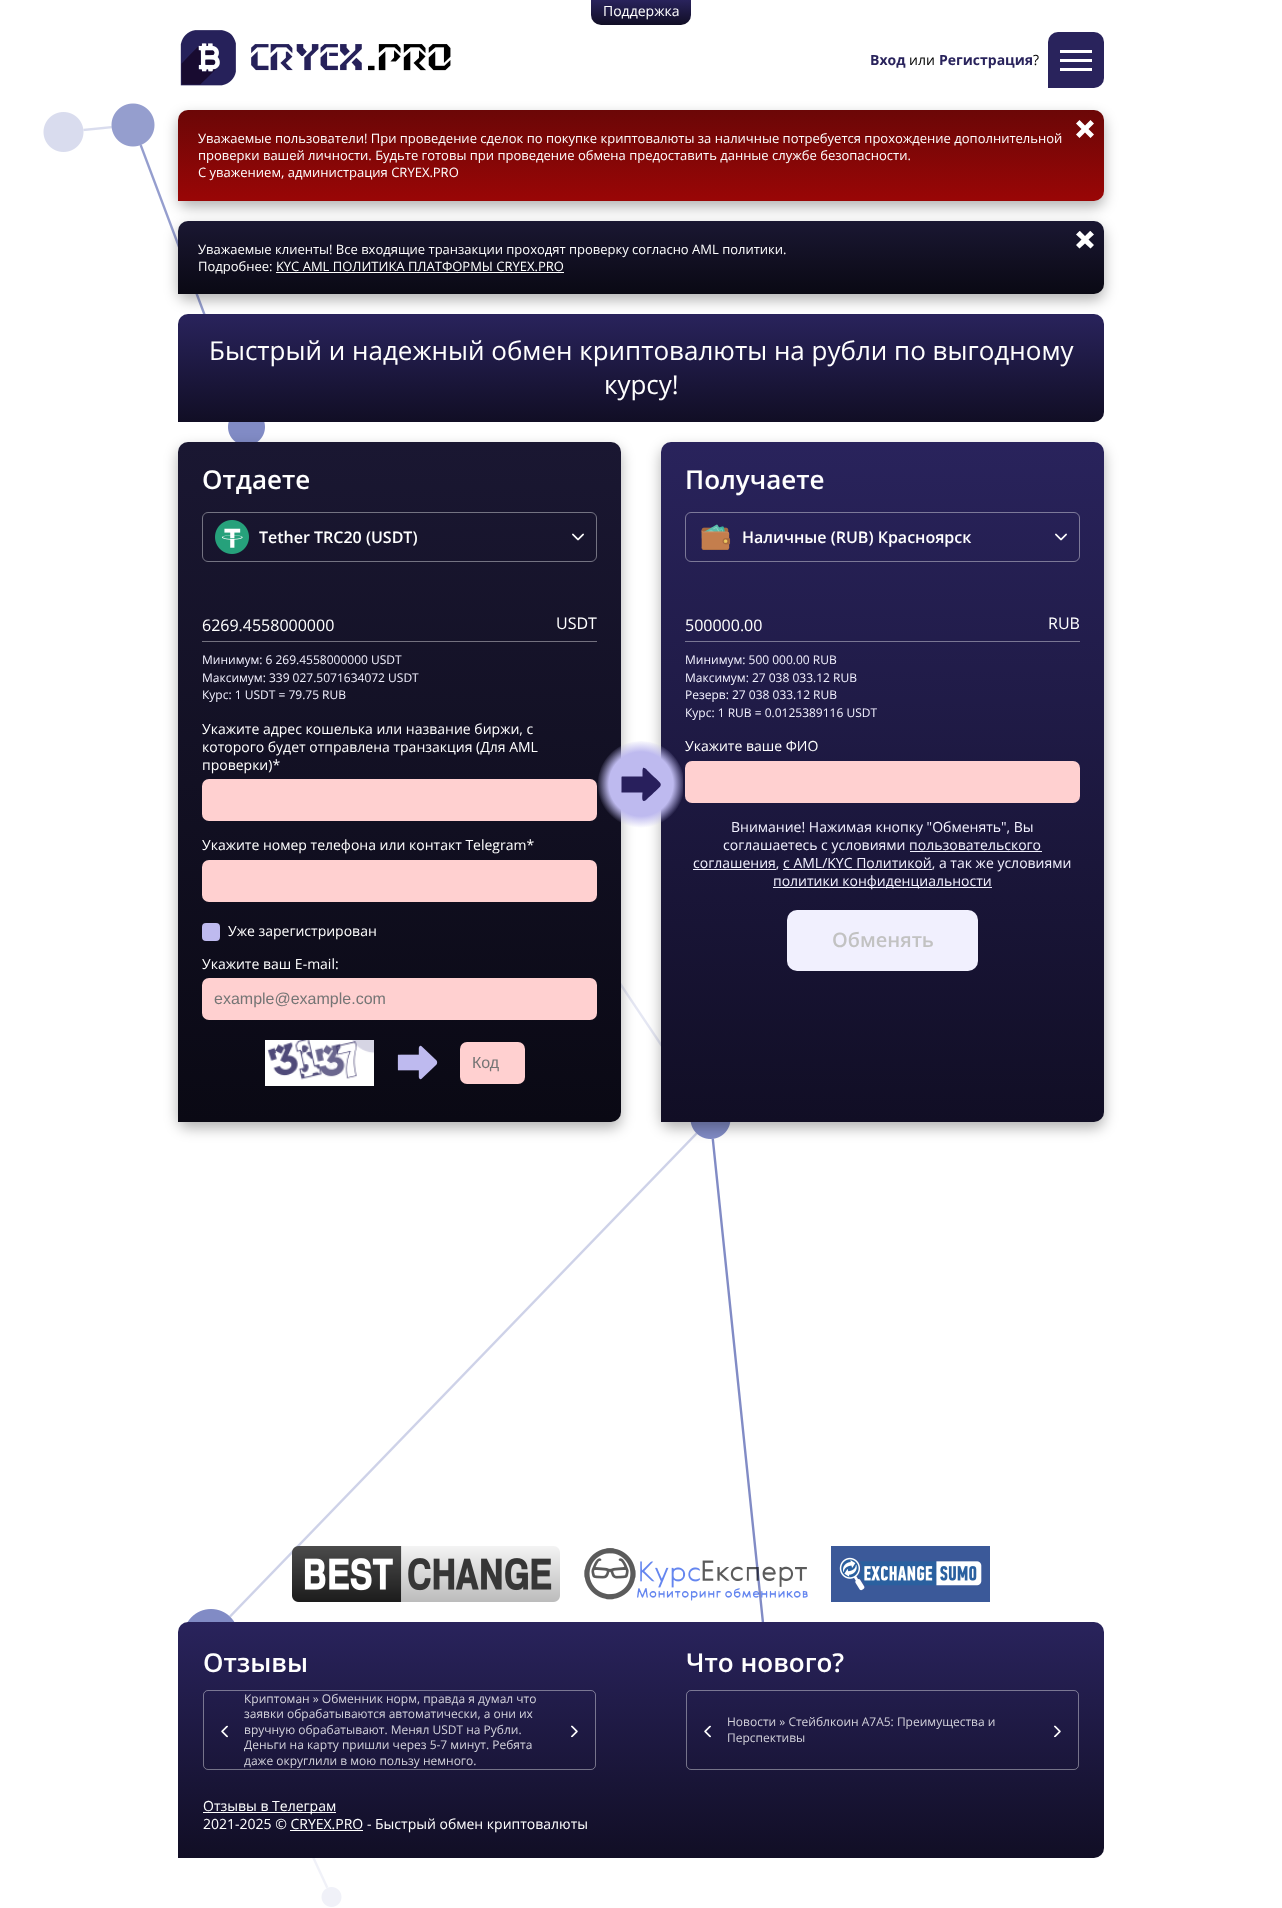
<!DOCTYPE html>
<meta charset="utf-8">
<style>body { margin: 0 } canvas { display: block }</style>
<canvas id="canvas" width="1282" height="1908"></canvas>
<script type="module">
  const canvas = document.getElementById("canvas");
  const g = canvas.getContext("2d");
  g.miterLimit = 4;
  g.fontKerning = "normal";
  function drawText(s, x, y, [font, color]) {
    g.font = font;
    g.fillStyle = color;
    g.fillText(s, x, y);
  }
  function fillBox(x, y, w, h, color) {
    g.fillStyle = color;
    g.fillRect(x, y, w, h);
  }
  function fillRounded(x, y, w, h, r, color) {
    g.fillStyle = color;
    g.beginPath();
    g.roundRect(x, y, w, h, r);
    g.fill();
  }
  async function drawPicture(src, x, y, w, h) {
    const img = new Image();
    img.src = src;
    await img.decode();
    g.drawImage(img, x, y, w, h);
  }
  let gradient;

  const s1 = ["14px Open Sans", "#FFFFFF"];
  const s2 = ["bold 14px Open Sans", "#29235C"];
  const s3 = ["14px Open Sans", "#010101"];
  const s4 = ["13px Open Sans", "#FFFFFF"];
  const s5 = ["26px Open Sans", "#FFFFFF"];
  const s6 = ["600 26px Open Sans", "#FFFFFF"];
  const s7 = ["600 16px Open Sans", "#FFFFFF"];
  const s8 = ["16px Open Sans", "#FFFFFF"];
  const s9 = ["12px Open Sans", "#F2F1FF"];
  const s10 = ["16px Liberation Sans", "#757575"];
  const s11 = ["14px Open Sans", "#F2F1FF"];
  const s12 = ["600 20px Open Sans", "#C2C2C2"];
  const s13 = ["12px Open Sans", "#D3D2DB"];

  fillBox(0, 0, 1282, 1908, "#FFFFFF");
  gradient = g.createLinearGradient(641, 0, 641, 25);
  gradient.addColorStop(0, "#29235C");
  gradient.addColorStop(1, "#110E25");
  g.fillStyle = gradient;
  g.beginPath();
  g.roundRect(591, 0, 100, 25, [0, 0, 10, 10]);
  g.fill();
  drawText("Поддержка", 603, 16, s1);
  await drawPicture("pic1.png", 180, 30, 271, 56);
  drawText("Вход", 870, 65, s2);
  drawText("или", 909, 65, s3);
  drawText("Регистрация", 939, 65, s2);
  drawText("?", 1033, 65, s3);
  g.fillStyle = "#29235C";
  g.beginPath();
  g.roundRect(1048, 32, 56, 56, [10, 10, 10, 0]);
  g.fill();
  fillBox(1060, 50, 32, 3, "#FFFFFF");
  fillBox(1060, 59, 32, 3, "#FFFFFF");
  fillBox(1060, 68, 32, 3, "#FFFFFF");
  await drawPicture("pic13.png", 43, 103, 912, 1804);
  g.fillStyle = "rgba(0, 0, 0, 0.3)";
  g.filter = "blur(7px)";
  g.beginPath();
  g.roundRect(178, 116, 926, 91, 10);
  g.fill();
  g.filter = "none";
  gradient = g.createLinearGradient(641, 110, 641, 201);
  gradient.addColorStop(0, "#6B0707");
  gradient.addColorStop(1, "#9A0606");
  g.fillStyle = gradient;
  g.beginPath();
  g.roundRect(178, 110, 926, 91, [10, 10, 10, 0]);
  g.fill();
  g.fillStyle = "#FFFFFF";
  g.beginPath();
  g.moveTo(1079.5, 120);
  g.lineTo(1085, 125.5);
  g.lineTo(1090.5, 120);
  g.lineTo(1094, 123.5);
  g.lineTo(1088.5, 129);
  g.lineTo(1094, 134.5);
  g.lineTo(1090.5, 138);
  g.lineTo(1085, 132.5);
  g.lineTo(1079.5, 138);
  g.lineTo(1076, 134.5);
  g.lineTo(1081.5, 129);
  g.lineTo(1076, 123.5);
  g.closePath();
  g.fill();
  drawText("Уважаемые пользователи! При проведение сделок по покупке криптовалюты за наличные потребуется прохождение дополнительной", 198, 143, s4);
  drawText("проверки вашей личности. Будьте готовы при проведение обмена предоставить данные службе безопасности.", 198, 160, s4);
  drawText("С уважением, администрация CRYEX.PRO", 198, 177, s4);
  gradient = g.createLinearGradient(641, 314, 641, 422);
  gradient.addColorStop(0, "#29235C");
  gradient.addColorStop(1, "#110E25");
  g.fillStyle = gradient;
  g.beginPath();
  g.roundRect(178, 314, 926, 108, [10, 10, 10, 0]);
  g.fill();
  g.fillStyle = "rgba(0, 0, 0, 0.3)";
  g.filter = "blur(7px)";
  g.beginPath();
  g.roundRect(178, 227, 926, 73, 10);
  g.fill();
  g.filter = "none";
  gradient = g.createLinearGradient(641, 221, 641, 294);
  gradient.addColorStop(0, "#1A1732");
  gradient.addColorStop(1, "#0A0914");
  g.fillStyle = gradient;
  g.beginPath();
  g.roundRect(178, 221, 926, 73, [10, 10, 10, 0]);
  g.fill();
  g.fillStyle = "#FFFFFF";
  g.beginPath();
  g.moveTo(1080, 231);
  g.lineTo(1079.5, 231);
  g.lineTo(1076, 234.5);
  g.lineTo(1081.5, 239.5);
  g.lineTo(1076, 245);
  g.lineTo(1079.5, 248.5);
  g.lineTo(1085, 243.5);
  g.lineTo(1090.5, 248.5);
  g.lineTo(1094, 245);
  g.lineTo(1088.5, 239.5);
  g.lineTo(1094, 234.5);
  g.lineTo(1090.5, 231);
  g.lineTo(1090, 231);
  g.lineTo(1085, 236);
  g.closePath();
  g.fill();
  drawText("Уважаемые клиенты! Все входящие транзакции проходят проверку согласно AML политики.", 198, 254, s4);
  drawText("Подробнее: KYC AML ПОЛИТИКА ПЛАТФОРМЫ CRYEX.PRO", 198, 271, s4);
  fillBox(276, 272, 288, 1, "#FFFFFF");
  drawText("Быстрый и надежный обмен криптовалюты на рубли по выгодному", 209, 360, s5);
  drawText("курсу!", 604, 394, s5);
  g.fillStyle = "rgba(0, 0, 0, 0.3)";
  g.filter = "blur(7px)";
  g.beginPath();
  g.roundRect(178, 448, 443, 680, 10);
  g.fill();
  g.filter = "none";
  gradient = g.createLinearGradient(399, 442, 400, 1122);
  gradient.addColorStop(0, "#1A1732");
  gradient.addColorStop(1, "#0A0914");
  g.fillStyle = gradient;
  g.beginPath();
  g.roundRect(178, 442, 443, 680, [10, 10, 10, 0]);
  g.fill();
  drawText("Отдаете", 202, 489, s6);
  g.beginPath();
  g.roundRect(202.5, 512.5, 394, 49, 5.5);
  g.strokeStyle = "#747382";
  g.stroke();
  await drawPicture("pic2.png", 215, 520, 34, 34);
  drawText("Tether TRC20 (USDT)", 259, 543, s7);
  await drawPicture("pic3.png", 572, 533, 12, 8);
  fillBox(202, 641, 395, 1, "#73717F");
  drawText("6269.4558000000", 202, 631, s8);
  drawText("USDT", 556, 629, s8);
  drawText("Минимум: 6 269.4558000000 USDT", 202, 664, s9);
  drawText("Максимум: 339 027.5071634072 USDT", 202, 682, s9);
  drawText("Курс: 1 USDT = 79.75 RUB", 202, 699, s9);
  drawText("Укажите адрес кошелька или название биржи, с", 202, 734, s1);
  drawText("которого будет отправлена транзакция (Для AML", 202, 752, s1);
  drawText("проверки)*", 202, 770, s1);
  fillRounded(202, 779, 395, 42, 7, "#FFD0D0");
  drawText("Укажите номер телефона или контакт Telegram*", 202, 850, s1);
  fillRounded(202, 860, 395, 42, 7, "#FFD0D0");
  g.fillStyle = "#BEBAEF";
  g.beginPath();
  g.roundRect(203, 924, 16, 16, 3);
  g.fill();
  g.strokeStyle = "#BEBAEF";
  g.lineWidth = 2;
  g.stroke();
  drawText("Уже зарегистрирован", 228, 936, s1);
  drawText("Укажите ваш E-mail:", 202, 969, s1);
  fillRounded(202, 978, 395, 42, 7, "#FFD0D0");
  drawText("example@example.com", 214, 1004, s10);
  await drawPicture("pic4.png", 265, 1040, 109, 46);
  await drawPicture("pic5.png", 397, 1045, 41, 35);
  fillRounded(460, 1042, 65, 42, 7, "#FFD0D0");
  drawText("Код", 472, 1068, s10);
  g.fillStyle = "rgba(0, 0, 0, 0.3)";
  g.filter = "blur(7px)";
  g.beginPath();
  g.roundRect(661, 448, 443, 680, 10);
  g.fill();
  g.filter = "none";
  gradient = g.createLinearGradient(883, 442, 883, 1122);
  gradient.addColorStop(0, "#29235C");
  gradient.addColorStop(1, "#110E25");
  g.fillStyle = gradient;
  g.beginPath();
  g.roundRect(661, 442, 443, 680, [10, 10, 10, 0]);
  g.fill();
  g.save();
  g.beginPath();
  g.rect(591, 735, 92, 95);
  g.clip();
  gradient = g.createRadialGradient(641, 784, 0, 641, 784, 44);
  gradient.addColorStop(0.73, "#BEBAEF");
  gradient.addColorStop(1, "rgba(190, 186, 239, 0)");
  g.fillStyle = gradient;
  g.beginPath();
  g.arc(641, 784.5, 43.5, 0, Math.PI * 2);
  g.fill();
  g.restore();
  g.fillStyle = "#281F5C";
  g.beginPath();
  g.moveTo(643.5, 801);
  g.bezierCurveTo(641.5, 800.5, 642.5, 794, 642.5, 792.5);
  g.lineTo(622.5, 792.5);
  g.bezierCurveTo(621, 792.5, 621.5, 792, 621.5, 791);
  g.lineTo(621.5, 778.5);
  g.bezierCurveTo(621.5, 776, 621.5, 776.5, 624.5, 776.5);
  g.lineTo(642.5, 776.5);
  g.lineTo(642.5, 770);
  g.lineTo(643, 768);
  g.bezierCurveTo(644.5, 766.5, 647.5, 770.5, 648.5, 771.5);
  g.lineTo(652, 775);
  g.bezierCurveTo(664, 786, 663.5, 783.5, 652, 794.5);
  g.lineTo(648, 798);
  g.bezierCurveTo(647.5, 798.5, 645, 801.5, 643.5, 801);
  g.closePath();
  g.fill();
  drawText("Получаете", 685, 489, s6);
  g.beginPath();
  g.roundRect(685.5, 512.5, 394, 49, 5.5);
  g.strokeStyle = "rgba(255, 255, 255, 0.4)";
  g.lineWidth = 1;
  g.stroke();
  await drawPicture("pic6.png", 701, 524, 30, 26);
  drawText("Наличные (RUB) Красноярск", 742, 543, s7);
  await drawPicture("pic7.png", 1055, 533, 12, 8);
  fillBox(685, 641, 395, 1, "#7A7794");
  drawText("500000.00", 685, 631, s8);
  drawText("RUB", 1048, 629, s8);
  drawText("Минимум: 500 000.00 RUB", 685, 664, s9);
  drawText("Максимум: 27 038 033.12 RUB", 685, 682, s9);
  drawText("Резерв: 27 038 033.12 RUB", 685, 699, s9);
  drawText("Курс: 1 RUB = 0.0125389116 USDT", 685, 717, s9);
  drawText("Укажите ваше ФИО", 685, 751, s1);
  fillRounded(685, 761, 395, 42, 7, "#FFD0D0");
  drawText("Внимание! Нажимая кнопку \"Обменять\", Вы", 731, 832, s11);
  drawText("соглашаетесь с условиями пользовательского", 723, 850, s11);
  fillBox(693, 869, 83, 1, "#F2F1FF");
  drawText("соглашения, с AML/KYC Политикой, а так же условиями", 693, 868, s11);
  fillBox(910, 851, 132, 1, "#F2F1FF");
  fillBox(783, 869, 149, 1, "#F2F1FF");
  fillBox(773, 887, 219, 1, "#F2F1FF");
  drawText("политики конфиденциальности", 773, 886, s11);
  fillRounded(787, 910, 191, 61, 10, "#F1F0FE");
  drawText("Обменять", 832, 947, s12);
  await drawPicture("pic8.png", 292, 1546, 268, 56);
  await drawPicture("pic9.png", 584, 1548, 224, 53);
  await drawPicture("pic10.png", 831, 1546, 159, 56);
  gradient = g.createLinearGradient(641, 1622, 641, 1858);
  gradient.addColorStop(0, "#29235C");
  gradient.addColorStop(1, "#110E25");
  g.fillStyle = gradient;
  g.beginPath();
  g.roundRect(178, 1622, 926, 236, [10, 10, 10, 0]);
  g.fill();
  drawText("Отзывы", 203, 1672, s6);
  g.beginPath();
  g.roundRect(203.5, 1690.5, 392, 79, 4.5);
  g.stroke();
  await drawPicture("pic11.png", 221, 1725, 7, 13);
  drawText("Криптоман » Обменник норм, правда я думал что", 244, 1703, s13);
  drawText("заявки обрабатываются автоматически, а они их", 244, 1718, s13);
  drawText("вручную обрабатывают. Менял USDT на Рубли.", 244, 1734, s13);
  drawText("Деньги на карту пришли через 5-7 минут. Ребята", 244, 1749, s13);
  drawText("даже округлили в мою пользу немного.", 244, 1765, s13);
  await drawPicture("pic12.png", 571, 1725, 7, 13);
  drawText("Что нового?", 686, 1672, s6);
  g.beginPath();
  g.roundRect(686.5, 1690.5, 392, 79, 4.5);
  g.stroke();
  await drawPicture("pic11.png", 704, 1725, 7, 13);
  drawText("Новости » Стейблкоин A7A5: Преимущества и", 727, 1726, s13);
  drawText("Перспективы", 727, 1742, s13);
  await drawPicture("pic12.png", 1054, 1725, 7, 13);
  fillBox(203, 1812, 133, 1, "#FFFFFF");
  drawText("Отзывы в Телеграм", 203, 1811, s1);
  drawText("2021-2025 © CRYEX.PRO - Быстрый обмен криптовалюты", 203, 1829, s1);
  fillBox(290, 1830, 73, 1, "#FFFFFF");
</script>
